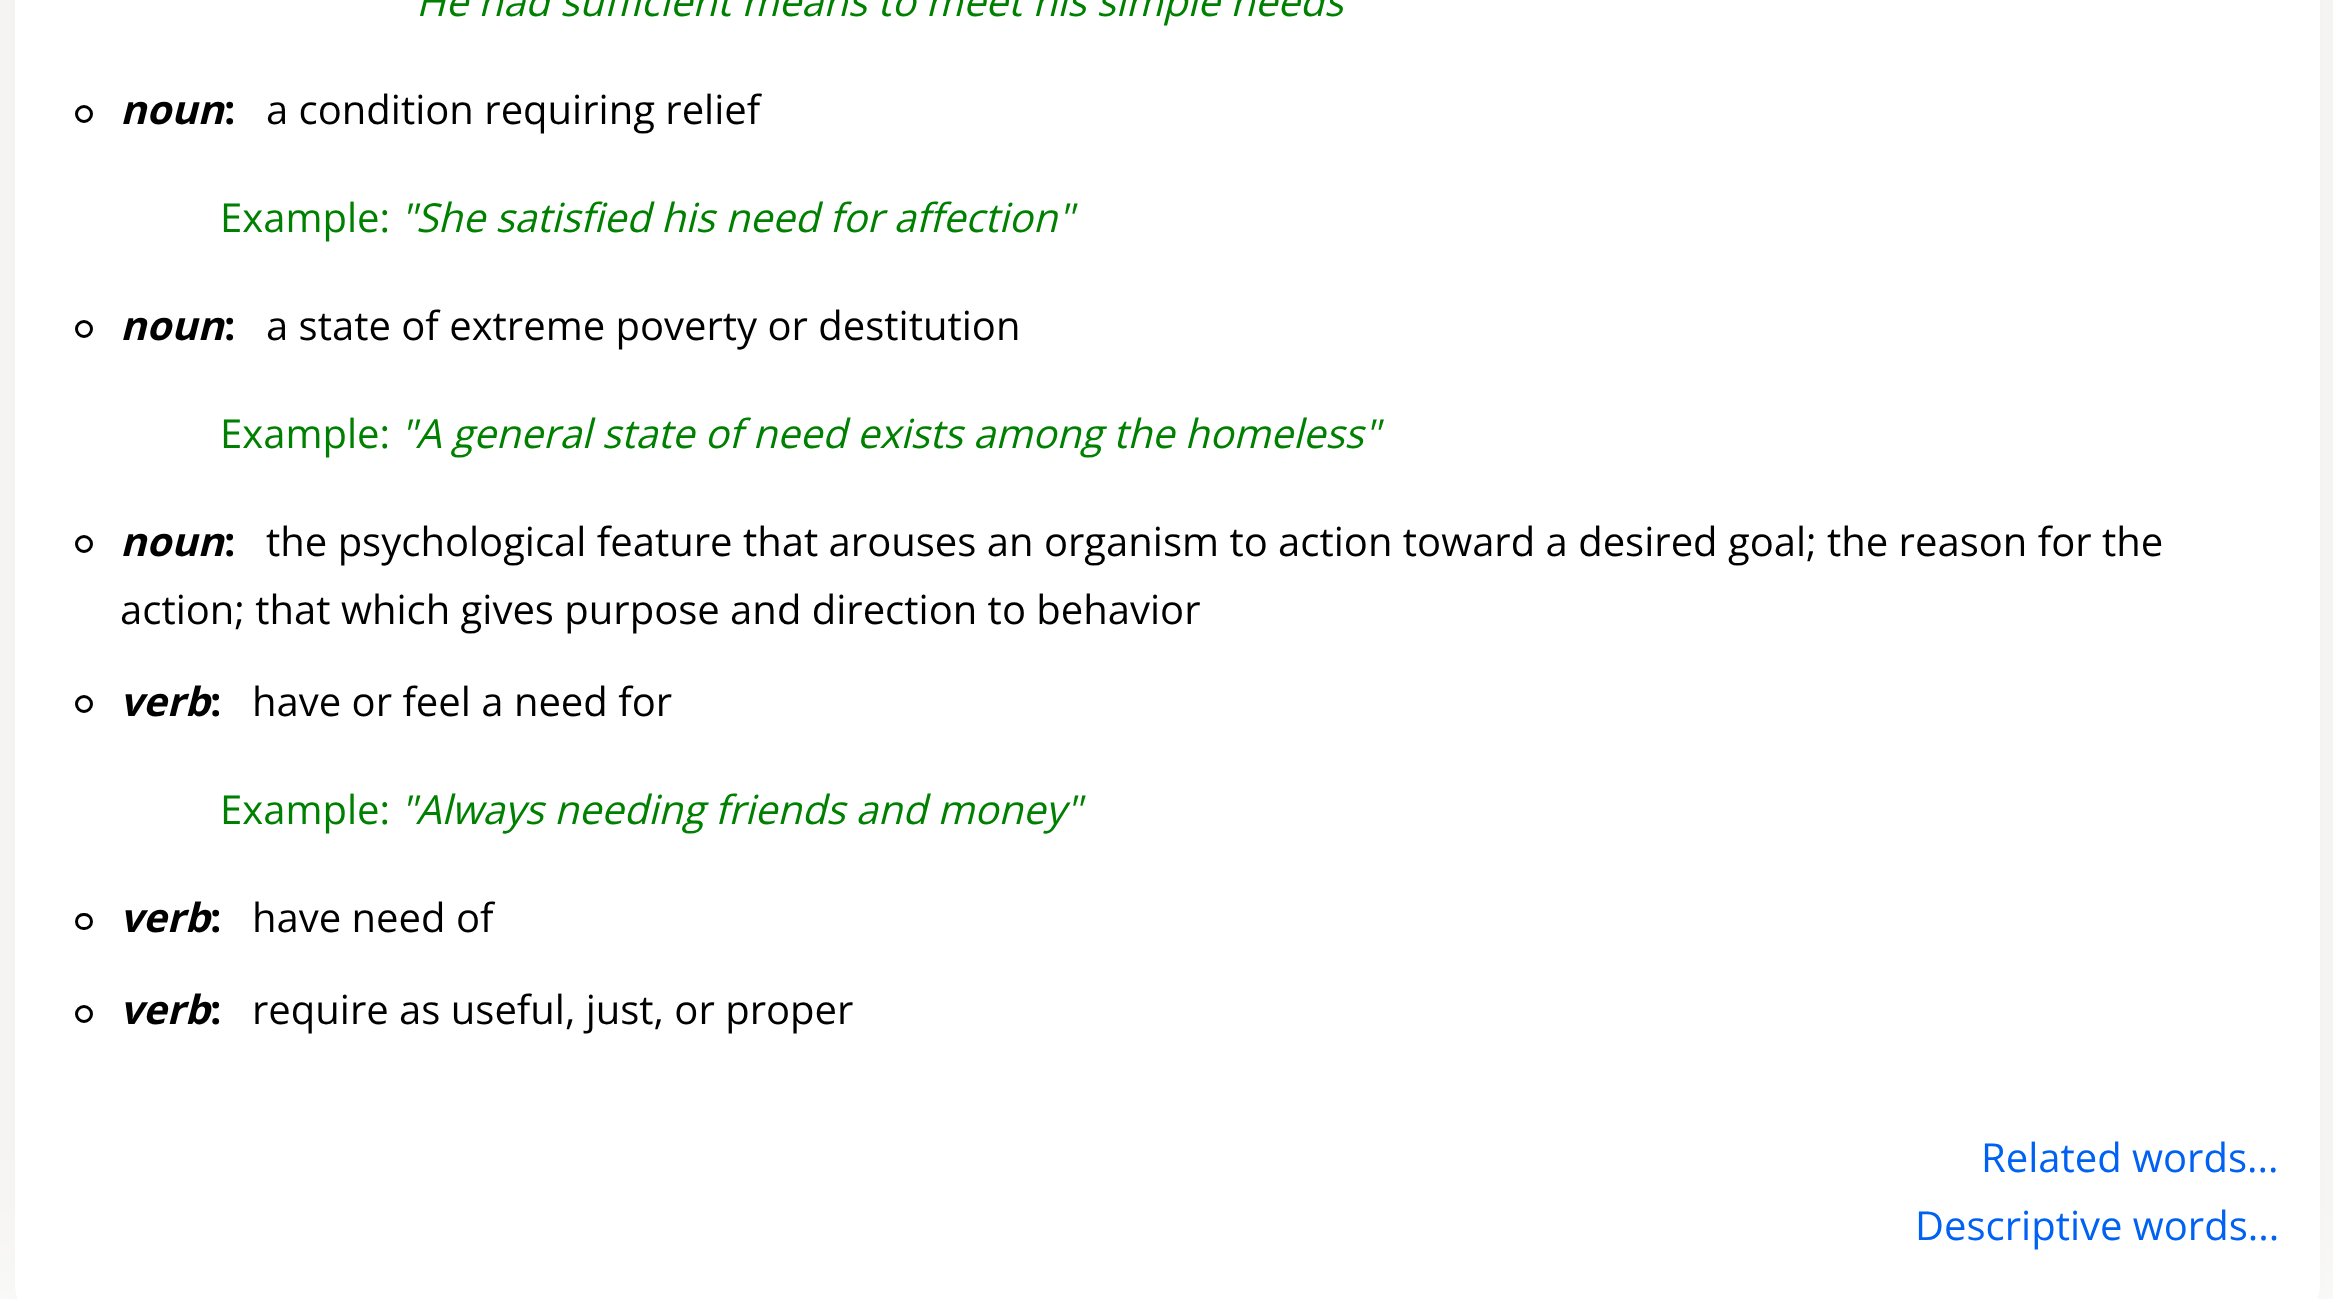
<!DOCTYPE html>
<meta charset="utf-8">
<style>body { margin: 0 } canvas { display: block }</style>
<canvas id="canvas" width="2333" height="1299"></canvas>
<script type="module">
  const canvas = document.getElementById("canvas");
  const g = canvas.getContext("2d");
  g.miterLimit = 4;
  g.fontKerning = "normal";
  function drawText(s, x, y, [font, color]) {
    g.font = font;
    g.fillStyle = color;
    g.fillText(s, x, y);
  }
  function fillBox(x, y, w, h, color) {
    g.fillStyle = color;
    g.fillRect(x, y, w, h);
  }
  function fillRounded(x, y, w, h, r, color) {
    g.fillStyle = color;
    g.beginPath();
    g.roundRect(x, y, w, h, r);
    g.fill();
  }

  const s1 = ["italic 40px Open Sans", "#008000"];
  const s2 = ["italic bold 40px Open Sans", "#000000"];
  const s3 = ["bold 40px Open Sans", "#000000"];
  const s4 = ["40px Open Sans", "#000000"];
  const s5 = ["40px Open Sans", "#008000"];
  const s6 = ["40px Open Sans", "#0061F2"];

  fillBox(0, 0, 2333, 1299, "#FFFFFF");
  g.fillStyle = "rgba(35, 31, 3, 0.1)";
  g.filter = "blur(100px)";
  g.beginPath();
  g.roundRect(15, -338, 2305, 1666, 38);
  g.fill();
  g.filter = "none";
  fillRounded(15, -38, 2305, 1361, 38, "#FFFFFF");
  drawText("He had sufficient means to meet his simple needs", 416, 16, s1);
  g.beginPath();
  g.arc(84, 114, 7.5, 0, Math.PI * 2);
  g.strokeStyle = "#000000";
  g.lineWidth = 3;
  g.stroke();
  drawText("noun", 120, 124, s2);
  drawText(":", 224, 124, s3);
  drawText("a condition requiring relief", 266, 124, s4);
  drawText("Example:", 220, 232, s5);
  drawText("\"She satisfied his need for affection\"", 400, 232, s1);
  g.beginPath();
  g.arc(84, 329, 7.5, 0, Math.PI * 2);
  g.stroke();
  drawText("noun", 120, 340, s2);
  drawText(":", 224, 340, s3);
  drawText("a state of extreme poverty or destitution", 266, 340, s4);
  drawText("Example:", 220, 448, s5);
  drawText("\"A general state of need exists among the homeless\"", 400, 448, s1);
  g.beginPath();
  g.arc(84, 544, 7.5, 0, Math.PI * 2);
  g.stroke();
  drawText("noun", 120, 556, s2);
  drawText(":", 224, 556, s3);
  drawText("the psychological feature that arouses an organism to action toward a desired goal; the reason for the", 266, 556, s4);
  drawText("action; that which gives purpose and direction to behavior", 120, 624, s4);
  g.beginPath();
  g.arc(84, 704, 7.5, 0, Math.PI * 2);
  g.stroke();
  drawText("verb", 120, 716, s2);
  drawText(":", 210, 716, s3);
  drawText("have or feel a need for", 252, 716, s4);
  drawText("Example:", 220, 824, s5);
  drawText("\"Always needing friends and money\"", 400, 824, s1);
  g.beginPath();
  g.roundRect(76.5, 914.5, 15, 14, 7);
  g.stroke();
  drawText("verb", 120, 932, s2);
  drawText(":", 210, 932, s3);
  drawText("have need of", 252, 932, s4);
  g.beginPath();
  g.arc(84, 1014, 7.5, 0, Math.PI * 2);
  g.stroke();
  drawText("verb", 120, 1024, s2);
  drawText(":", 210, 1024, s3);
  drawText("require as useful, just, or proper", 252, 1024, s4);
  drawText("Related words...", 1981, 1172, s6);
  drawText("Descriptive words...", 1915, 1240, s6);
</script>
